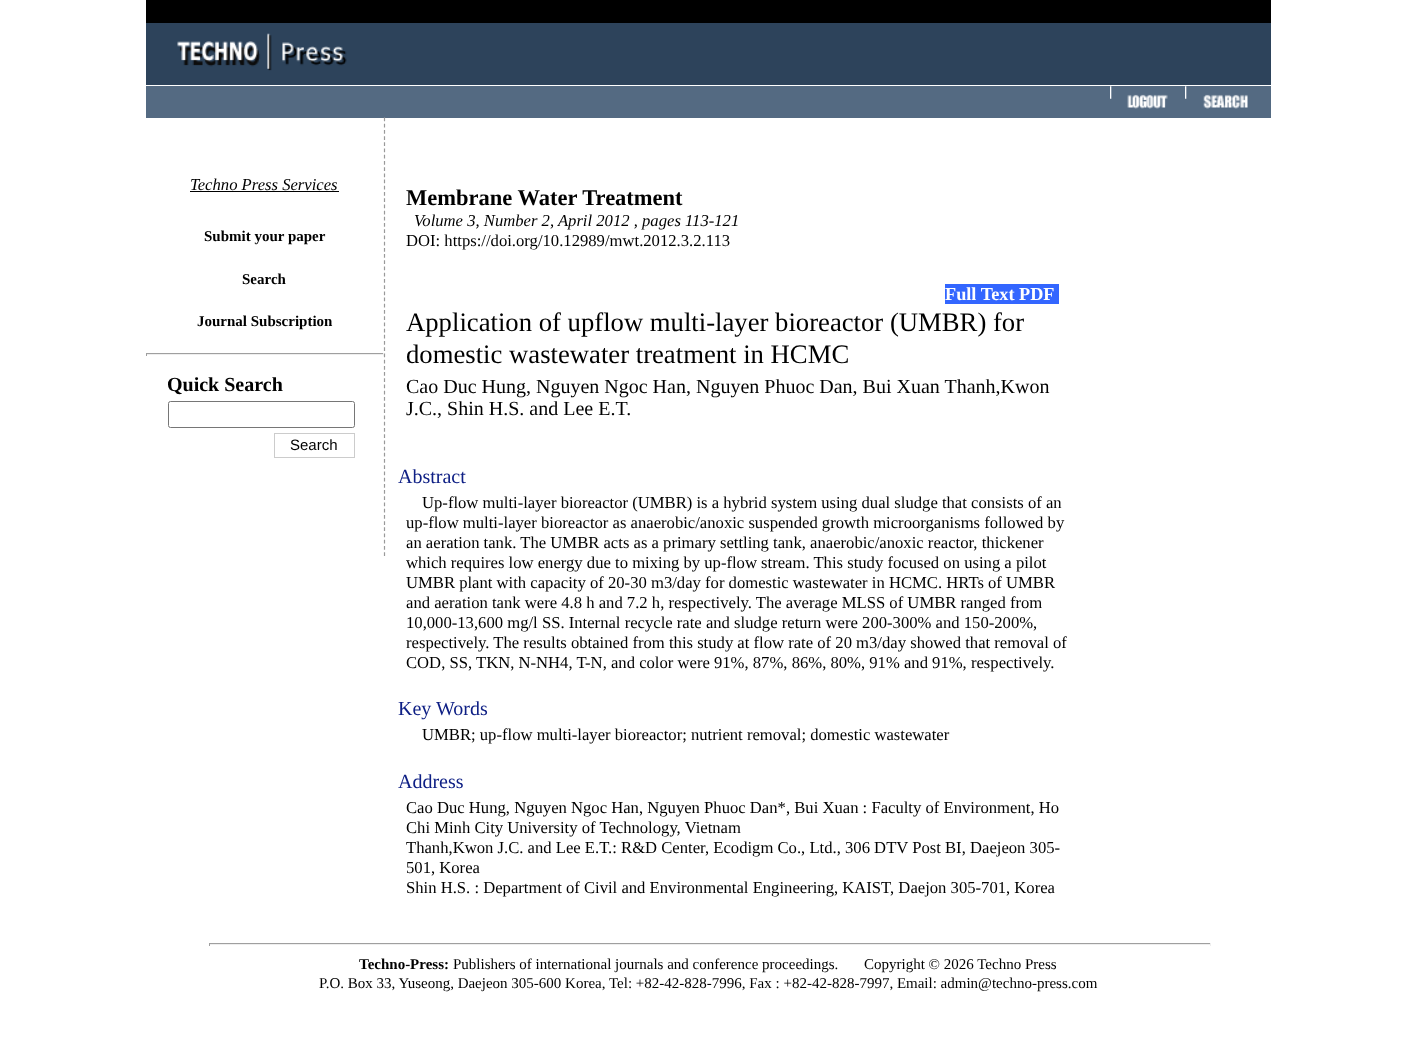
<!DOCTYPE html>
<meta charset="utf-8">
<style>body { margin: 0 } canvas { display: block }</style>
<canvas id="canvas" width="1416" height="1040"></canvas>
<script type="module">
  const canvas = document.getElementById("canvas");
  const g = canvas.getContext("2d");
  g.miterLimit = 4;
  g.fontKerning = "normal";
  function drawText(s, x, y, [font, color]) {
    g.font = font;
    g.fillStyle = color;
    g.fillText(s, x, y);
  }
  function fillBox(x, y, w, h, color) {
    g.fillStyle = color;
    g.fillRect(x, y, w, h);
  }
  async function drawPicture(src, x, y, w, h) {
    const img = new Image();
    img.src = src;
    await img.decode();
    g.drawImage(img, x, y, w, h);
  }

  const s1 = ["italic 16.65px Liberation Serif", "#000000"];
  const s2 = ["bold 15px Liberation Serif", "#000000"];
  const s3 = ["bold 20px Liberation Serif", "#000000"];
  const s4 = ["15px Liberation Sans", "#000000"];
  const s5 = ["bold 22.5px Liberation Serif", "#000000"];
  const s6 = ["16.65px Liberation Serif", "#000000"];
  const s7 = ["bold 18.25px Liberation Serif", "#FFFFFF"];
  const s8 = ["26.7px Liberation Serif", "#000000"];
  const s9 = ["20px Liberation Serif", "#000000"];
  const s10 = ["20px Liberation Serif", "#0F2085"];
  const s11 = ["15px Liberation Serif", "#000000"];

  fillBox(0, 0, 1416, 1040, "#FFFFFF");
  fillBox(146, 0, 1125, 23, "#000000");
  fillBox(146, 23, 1125, 62, "#2D435B");
  await drawPicture("pic1.png", 177, 33, 170, 38);
  fillBox(146, 86, 1125, 32, "#546A82");
  await drawPicture("pic2.png", 1110, 86, 58, 23);
  await drawPicture("pic3.png", 1185, 86, 63, 23);
  g.beginPath();
  g.moveTo(384.5, 117.5);
  g.lineTo(384.5, 556);
  g.strokeStyle = "#999999";
  g.lineWidth = 1.2;
  g.setLineDash([3.75, 2.46]);
  g.stroke();
  drawText("Techno Press Services", 190, 190, s1);
  fillBox(190, 191, 149, 1, "#000000");
  drawText("Submit your paper", 204, 241, s2);
  drawText("Search", 242, 284, s2);
  drawText("Journal Subscription", 197, 326, s2);
  fillBox(146, 353, 238, 1, "#9F9F9F");
  fillBox(383, 353, 1, 3, "#EEEEEE");
  fillBox(146, 354, 238, 1, "#EEEEEE");
  fillBox(146, 353, 1, 3, "#9F9F9F");
  drawText("Quick Search", 167, 391, s3);
  g.beginPath();
  g.roundRect(168.5, 401.5, 186, 26, 2);
  g.strokeStyle = "#767676";
  g.lineWidth = 1;
  g.setLineDash([]);
  g.stroke();
  g.strokeStyle = "#CCCCCC";
  g.strokeRect(274.5, 433.5, 80, 24);
  drawText("Search", 290, 450, s4);
  drawText("Membrane Water Treatment", 406, 205, s5);
  drawText("Volume 3, Number 2, April 2012 , pages 113-121", 414, 226, s1);
  drawText("DOI: https://doi.org/10.12989/mwt.2012.3.2.113", 406, 246, s6);
  fillBox(945, 284, 114, 20, "#3366FF");
  drawText("Full Text PDF", 945, 300, s7);
  drawText("Application of upflow multi-layer bioreactor (UMBR) for", 406, 331, s8);
  drawText("domestic wastewater treatment in HCMC", 406, 363, s8);
  drawText("Cao Duc Hung, Nguyen Ngoc Han, Nguyen Phuoc Dan, Bui Xuan Thanh,Kwon", 406, 393, s9);
  drawText("J.C., Shin H.S. and Lee E.T.", 406, 415, s9);
  drawText("Abstract", 398, 483, s10);
  drawText("Up-flow multi-layer bioreactor (UMBR) is a hybrid system using dual sludge that consists of an", 422, 508, s6);
  drawText("up-flow multi-layer bioreactor as anaerobic/anoxic suspended growth microorganisms followed by", 406, 528, s6);
  drawText("an aeration tank. The UMBR acts as a primary settling tank, anaerobic/anoxic reactor, thickener", 406, 548, s6);
  drawText("which requires low energy due to mixing by up-flow stream. This study focused on using a pilot", 406, 568, s6);
  drawText("UMBR plant with capacity of 20-30 m3/day for domestic wastewater in HCMC. HRTs of UMBR", 406, 588, s6);
  drawText("and aeration tank were 4.8 h and 7.2 h, respectively. The average MLSS of UMBR ranged from", 406, 608, s6);
  drawText("10,000-13,600 mg/l SS. Internal recycle rate and sludge return were 200-300% and 150-200%,", 406, 628, s6);
  drawText("respectively. The results obtained from this study at flow rate of 20 m3/day showed that removal of", 406, 648, s6);
  drawText("COD, SS, TKN, N-NH4, T-N, and color were 91%, 87%, 86%, 80%, 91% and 91%, respectively.", 406, 668, s6);
  drawText("Key Words", 398, 715, s10);
  drawText("UMBR; up-flow multi-layer bioreactor; nutrient removal; domestic wastewater", 422, 740, s6);
  drawText("Address", 398, 788, s10);
  drawText("Cao Duc Hung, Nguyen Ngoc Han, Nguyen Phuoc Dan*, Bui Xuan : Faculty of Environment, Ho", 406, 813, s6);
  drawText("Chi Minh City University of Technology, Vietnam", 406, 833, s6);
  drawText("Thanh,Kwon J.C. and Lee E.T.: R&D Center, Ecodigm Co., Ltd., 306 DTV Post BI, Daejeon 305-", 406, 853, s6);
  drawText("501, Korea", 406, 873, s6);
  drawText("Shin H.S. : Department of Civil and Environmental Engineering, KAIST, Daejon 305-701, Korea", 406, 893, s6);
  fillBox(209, 943, 1002, 1, "#9F9F9F");
  fillBox(1210, 943, 1, 3, "#EEEEEE");
  fillBox(209, 944, 1002, 1, "#EEEEEE");
  fillBox(209, 943, 1, 3, "#9F9F9F");
  drawText("Techno-Press:", 359, 969, s2);
  drawText("Publishers of international journals and conference proceedings.", 453, 969, s11);
  drawText("Copyright © 2026 Techno Press", 864, 969, s11);
  drawText("P.O. Box 33, Yuseong, Daejeon 305-600 Korea, Tel: +82-42-828-7996, Fax : +82-42-828-7997, Email: admin@techno-press.com", 319, 988, s11);
</script>
